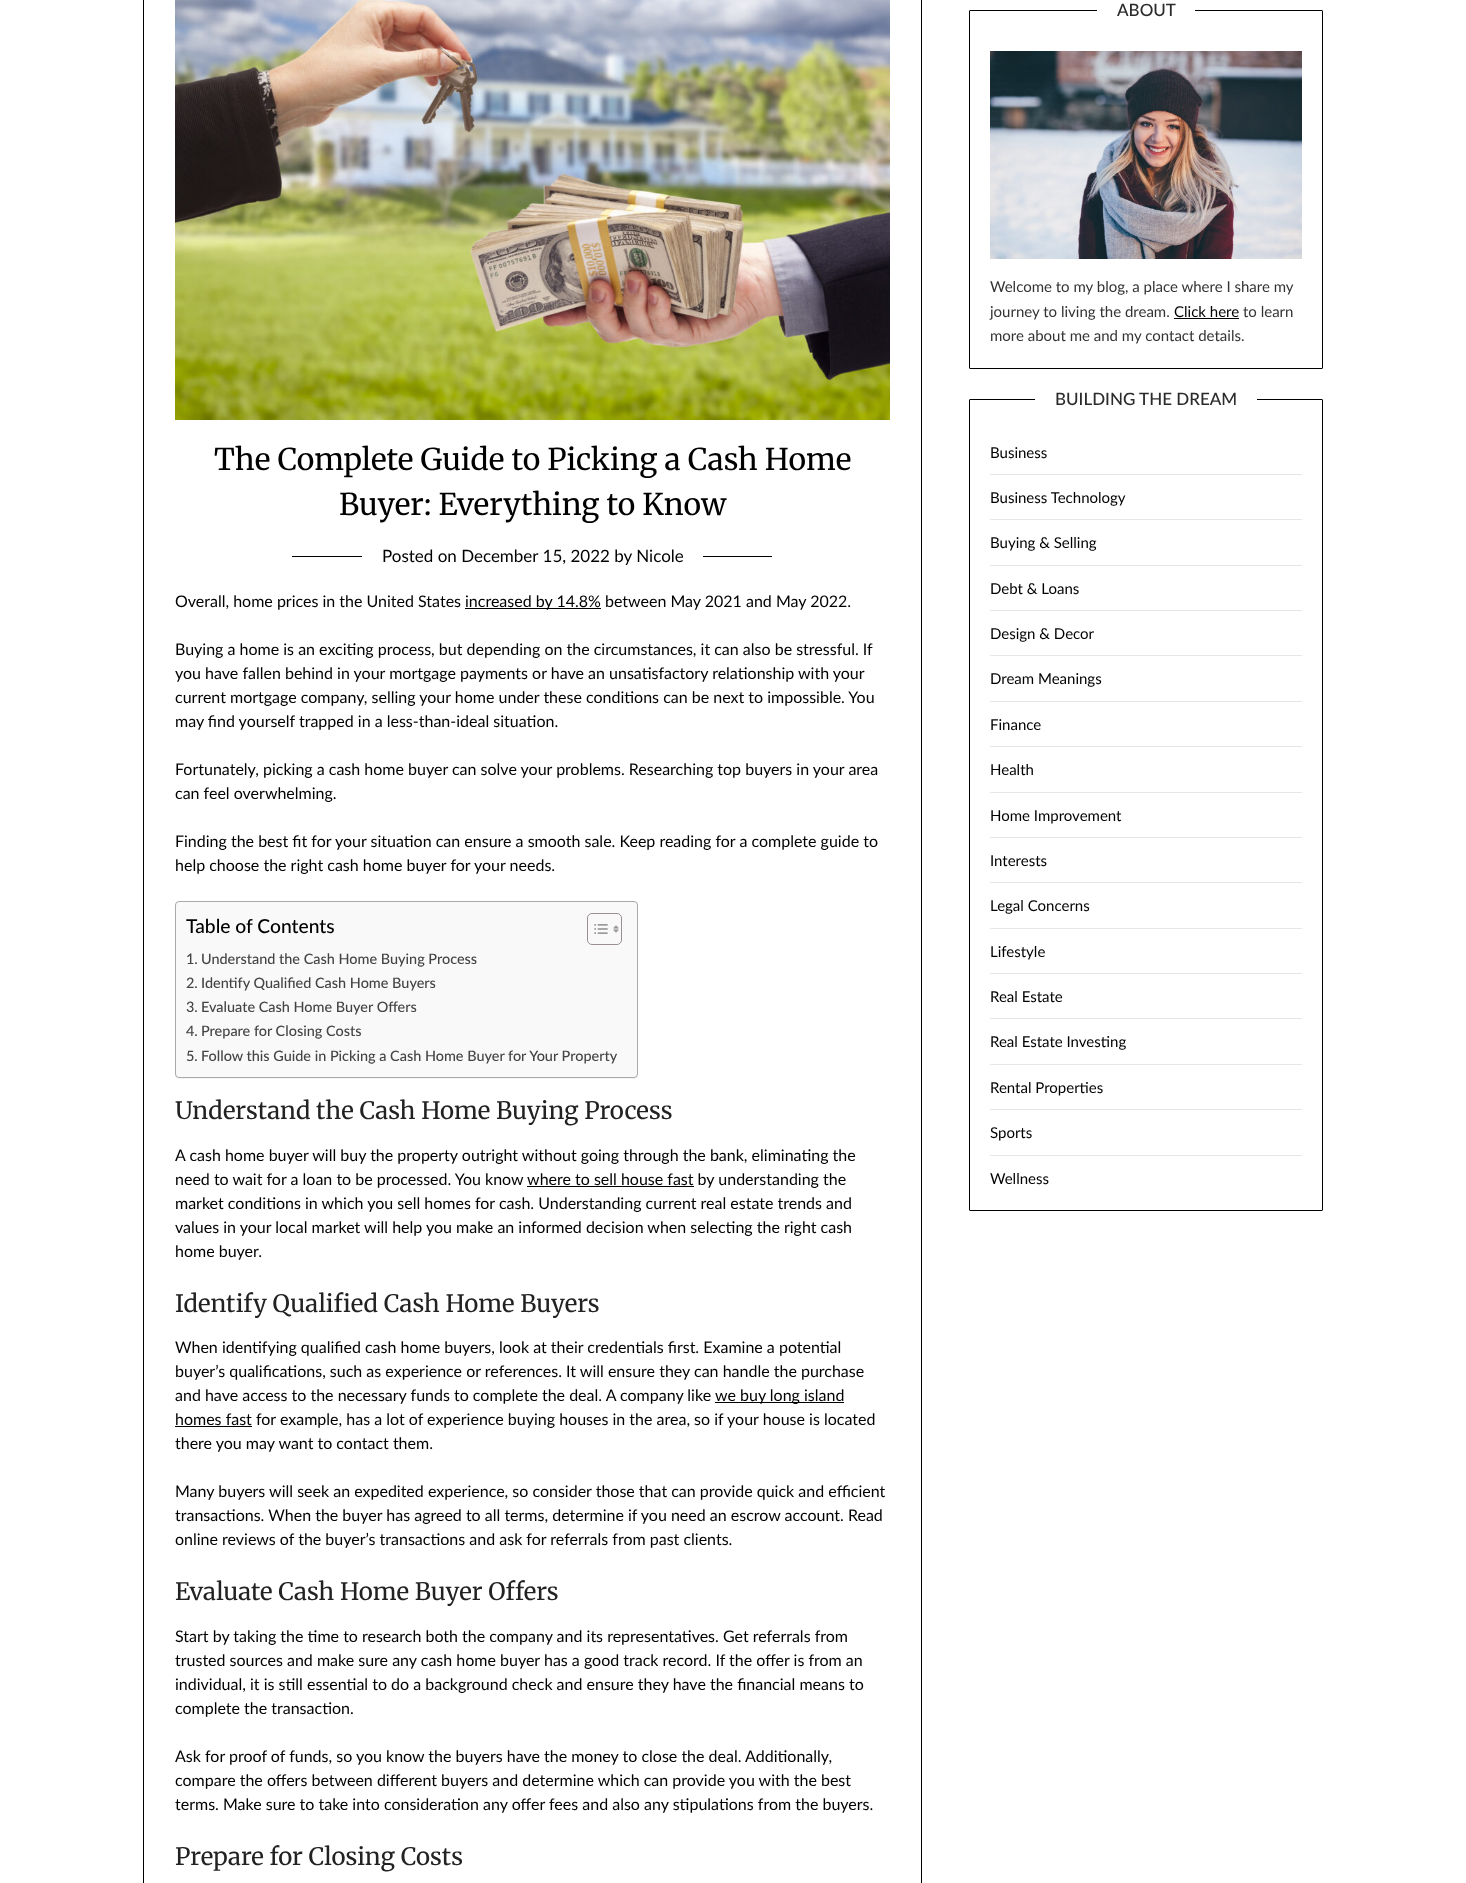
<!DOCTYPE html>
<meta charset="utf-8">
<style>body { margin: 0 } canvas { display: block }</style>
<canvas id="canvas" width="1466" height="1883"></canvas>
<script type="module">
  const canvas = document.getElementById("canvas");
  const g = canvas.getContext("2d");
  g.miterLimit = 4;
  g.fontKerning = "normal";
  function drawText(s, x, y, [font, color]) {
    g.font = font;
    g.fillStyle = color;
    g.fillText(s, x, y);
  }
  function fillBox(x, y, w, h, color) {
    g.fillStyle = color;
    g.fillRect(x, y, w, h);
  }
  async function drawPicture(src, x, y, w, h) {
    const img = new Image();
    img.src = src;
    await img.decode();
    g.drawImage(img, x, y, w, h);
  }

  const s1 = ["30px Merriweather", "#000000"];
  const s2 = ["17px Lato", "#000000"];
  const s3 = ["16px Lato", "#000000"];
  const s4 = ["500 19.25px Lato", "#000000"];
  const s5 = ["500 14.45px Lato", "#444444"];
  const s6 = ["24px Merriweather", "#222222"];
  const s7 = ["500 17px Lato", "#2B2B2B"];
  const s8 = ["15px Lato", "#333333"];
  const s9 = ["15px Lato", "#000000"];

  fillBox(0, 0, 1466, 1883, "#FFFFFF");
  g.strokeStyle = "#000000";
  g.strokeRect(143.5, -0.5, 778, 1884);
  await drawPicture("pic1.png", 175, 0, 715, 420);
  drawText("The Complete Guide to Picking a Cash Home", 214, 470, s1);
  drawText("Buyer: Everything to Know", 339, 515, s1);
  fillBox(292, 556, 480, 1, "#000000");
  fillBox(362, 556, 341, 1, "#FFFFFF");
  drawText("Posted on December 15, 2022 by Nicole", 382, 562, s2);
  drawText("Overall, home prices in the United States", 175, 607, s3);
  fillBox(465, 608, 136, 1, "#000000");
  drawText("increased by 14.8% between May 2021 and May 2022.", 465, 607, s3);
  drawText("Buying a home is an exciting process, but depending on the circumstances, it can also be stressful. If", 175, 655, s3);
  drawText("you have fallen behind in your mortgage payments or have an unsatisfactory relationship with your", 175, 679, s3);
  drawText("current mortgage company, selling your home under these conditions can be next to impossible. You", 175, 703, s3);
  drawText("may find yourself trapped in a less-than-ideal situation.", 175, 727, s3);
  drawText("Fortunately, picking a cash home buyer can solve your problems. Researching top buyers in your area", 175, 775, s3);
  drawText("can feel overwhelming.", 175, 799, s3);
  drawText("Finding the best fit for your situation can ensure a smooth sale. Keep reading for a complete guide to", 175, 847, s3);
  drawText("help choose the right cash home buyer for your needs.", 175, 871, s3);
  g.fillStyle = "rgba(0, 0, 0, 0.05)";
  g.filter = "blur(0.5px)";
  g.beginPath();
  g.roundRect(175, 902, 463, 177, 4);
  g.fill();
  g.filter = "none";
  g.fillStyle = "#F9F9F9";
  g.beginPath();
  g.roundRect(175.5, 901.5, 462, 176, 3.5);
  g.fill();
  g.strokeStyle = "#AAAAAA";
  g.stroke();
  drawText("Table of Contents", 186, 933, s4);
  g.beginPath();
  g.roundRect(587.5, 913.5, 34, 31, 4.5);
  g.strokeStyle = "#999191";
  g.stroke();
  await drawPicture("pic2.png", 594, 924, 14, 10);
  await drawPicture("pic3.png", 613, 925, 6, 8);
  drawText("1.", 186, 964, s5);
  drawText("Understand the Cash Home Buying Process", 201, 964, s5);
  drawText("2.", 186, 988, s5);
  drawText("Identify Qualified Cash Home Buyers", 201, 988, s5);
  drawText("3.", 186, 1012, s5);
  drawText("Evaluate Cash Home Buyer Offers", 201, 1012, s5);
  drawText("4.", 186, 1036, s5);
  drawText("Prepare for Closing Costs", 201, 1036, s5);
  drawText("5.", 186, 1061, s5);
  drawText("Follow this Guide in Picking a Cash Home Buyer for Your Property", 201, 1061, s5);
  drawText("Understand the Cash Home Buying Process", 175, 1119, s6);
  drawText("A cash home buyer will buy the property outright without going through the bank, eliminating the", 175, 1161, s3);
  drawText("need to wait for a loan to be processed. You know where to sell house fast by understanding the", 175, 1185, s3);
  fillBox(527, 1186, 167, 1, "#000000");
  drawText("market conditions in which you sell homes for cash. Understanding current real estate trends and", 175, 1209, s3);
  drawText("values in your local market will help you make an informed decision when selecting the right cash", 175, 1233, s3);
  drawText("home buyer.", 175, 1257, s3);
  drawText("Identify Qualified Cash Home Buyers", 175, 1312, s6);
  drawText("When identifying qualified cash home buyers, look at their credentials first. Examine a potential", 175, 1353, s3);
  drawText("buyer’s qualifications, such as experience or references. It will ensure they can handle the purchase", 175, 1377, s3);
  drawText("and have access to the necessary funds to complete the deal. A company like", 175, 1401, s3);
  fillBox(715, 1402, 129, 1, "#000000");
  drawText("we buy long island", 715, 1401, s3);
  fillBox(175, 1426, 77, 1, "#000000");
  drawText("homes fast for example, has a lot of experience buying houses in the area, so if your house is located", 175, 1425, s3);
  drawText("there you may want to contact them.", 175, 1449, s3);
  drawText("Many buyers will seek an expedited experience, so consider those that can provide quick and efficient", 175, 1497, s3);
  drawText("transactions. When the buyer has agreed to all terms, determine if you need an escrow account. Read", 175, 1521, s3);
  drawText("online reviews of the buyer’s transactions and ask for referrals from past clients.", 175, 1545, s3);
  drawText("Evaluate Cash Home Buyer Offers", 175, 1600, s6);
  drawText("Start by taking the time to research both the company and its representatives. Get referrals from", 175, 1642, s3);
  drawText("trusted sources and make sure any cash home buyer has a good track record. If the offer is from an", 175, 1666, s3);
  drawText("individual, it is still essential to do a background check and ensure they have the financial means to", 175, 1690, s3);
  drawText("complete the transaction.", 175, 1714, s3);
  drawText("Ask for proof of funds, so you know the buyers have the money to close the deal. Additionally,", 175, 1762, s3);
  drawText("compare the offers between different buyers and determine which can provide you with the best", 175, 1786, s3);
  drawText("terms. Make sure to take into consideration any offer fees and also any stipulations from the buyers.", 175, 1810, s3);
  drawText("Prepare for Closing Costs", 175, 1865, s6);
  g.beginPath();
  g.roundRect(969.5, 10.5, 353, 358, 0.5);
  g.strokeStyle = "#000000";
  g.stroke();
  fillBox(1097, 10, 98, 1, "#FFFFFF");
  drawText("ABOUT", 1117, 16, s7);
  await drawPicture("pic4.png", 990, 51, 312, 208);
  drawText("Welcome to my blog, a place where I share my", 990, 292, s8);
  drawText("journey to living the dream.", 990, 317, s8);
  drawText("Click here", 1174, 317, s9);
  fillBox(1174, 318, 65, 1, "#000000");
  drawText("to learn", 1243, 317, s8);
  drawText("more about me and my contact details.", 990, 341, s8);
  g.beginPath();
  g.roundRect(969.5, 399.5, 353, 811, 0.5);
  g.stroke();
  fillBox(1035, 399, 222, 1, "#FFFFFF");
  drawText("BUILDING THE DREAM", 1055, 405, s7);
  fillBox(990, 474, 312, 1, "#E6E6E6");
  drawText("Business", 990, 458, s9);
  fillBox(990, 519, 312, 1, "#E6E6E6");
  drawText("Business Technology", 990, 503, s9);
  fillBox(990, 565, 312, 1, "#E6E6E6");
  drawText("Buying & Selling", 990, 548, s9);
  fillBox(990, 610, 312, 1, "#E6E6E6");
  drawText("Debt & Loans", 990, 594, s9);
  fillBox(990, 655, 312, 1, "#E6E6E6");
  drawText("Design & Decor", 990, 639, s9);
  fillBox(990, 701, 312, 1, "#E6E6E6");
  drawText("Dream Meanings", 990, 684, s9);
  fillBox(990, 746, 312, 1, "#E6E6E6");
  drawText("Finance", 990, 730, s9);
  fillBox(990, 792, 312, 1, "#E6E6E6");
  drawText("Health", 990, 775, s9);
  fillBox(990, 837, 312, 1, "#E6E6E6");
  drawText("Home Improvement", 990, 821, s9);
  fillBox(990, 882, 312, 1, "#E6E6E6");
  drawText("Interests", 990, 866, s9);
  fillBox(990, 928, 312, 1, "#E6E6E6");
  drawText("Legal Concerns", 990, 911, s9);
  fillBox(990, 973, 312, 1, "#E6E6E6");
  drawText("Lifestyle", 990, 957, s9);
  fillBox(990, 1018, 312, 1, "#E6E6E6");
  drawText("Real Estate", 990, 1002, s9);
  fillBox(990, 1064, 312, 1, "#E6E6E6");
  drawText("Real Estate Investing", 990, 1047, s9);
  fillBox(990, 1109, 312, 1, "#E6E6E6");
  drawText("Rental Properties", 990, 1093, s9);
  fillBox(990, 1155, 312, 1, "#E6E6E6");
  drawText("Sports", 990, 1138, s9);
  drawText("Wellness", 990, 1184, s9);
</script>
